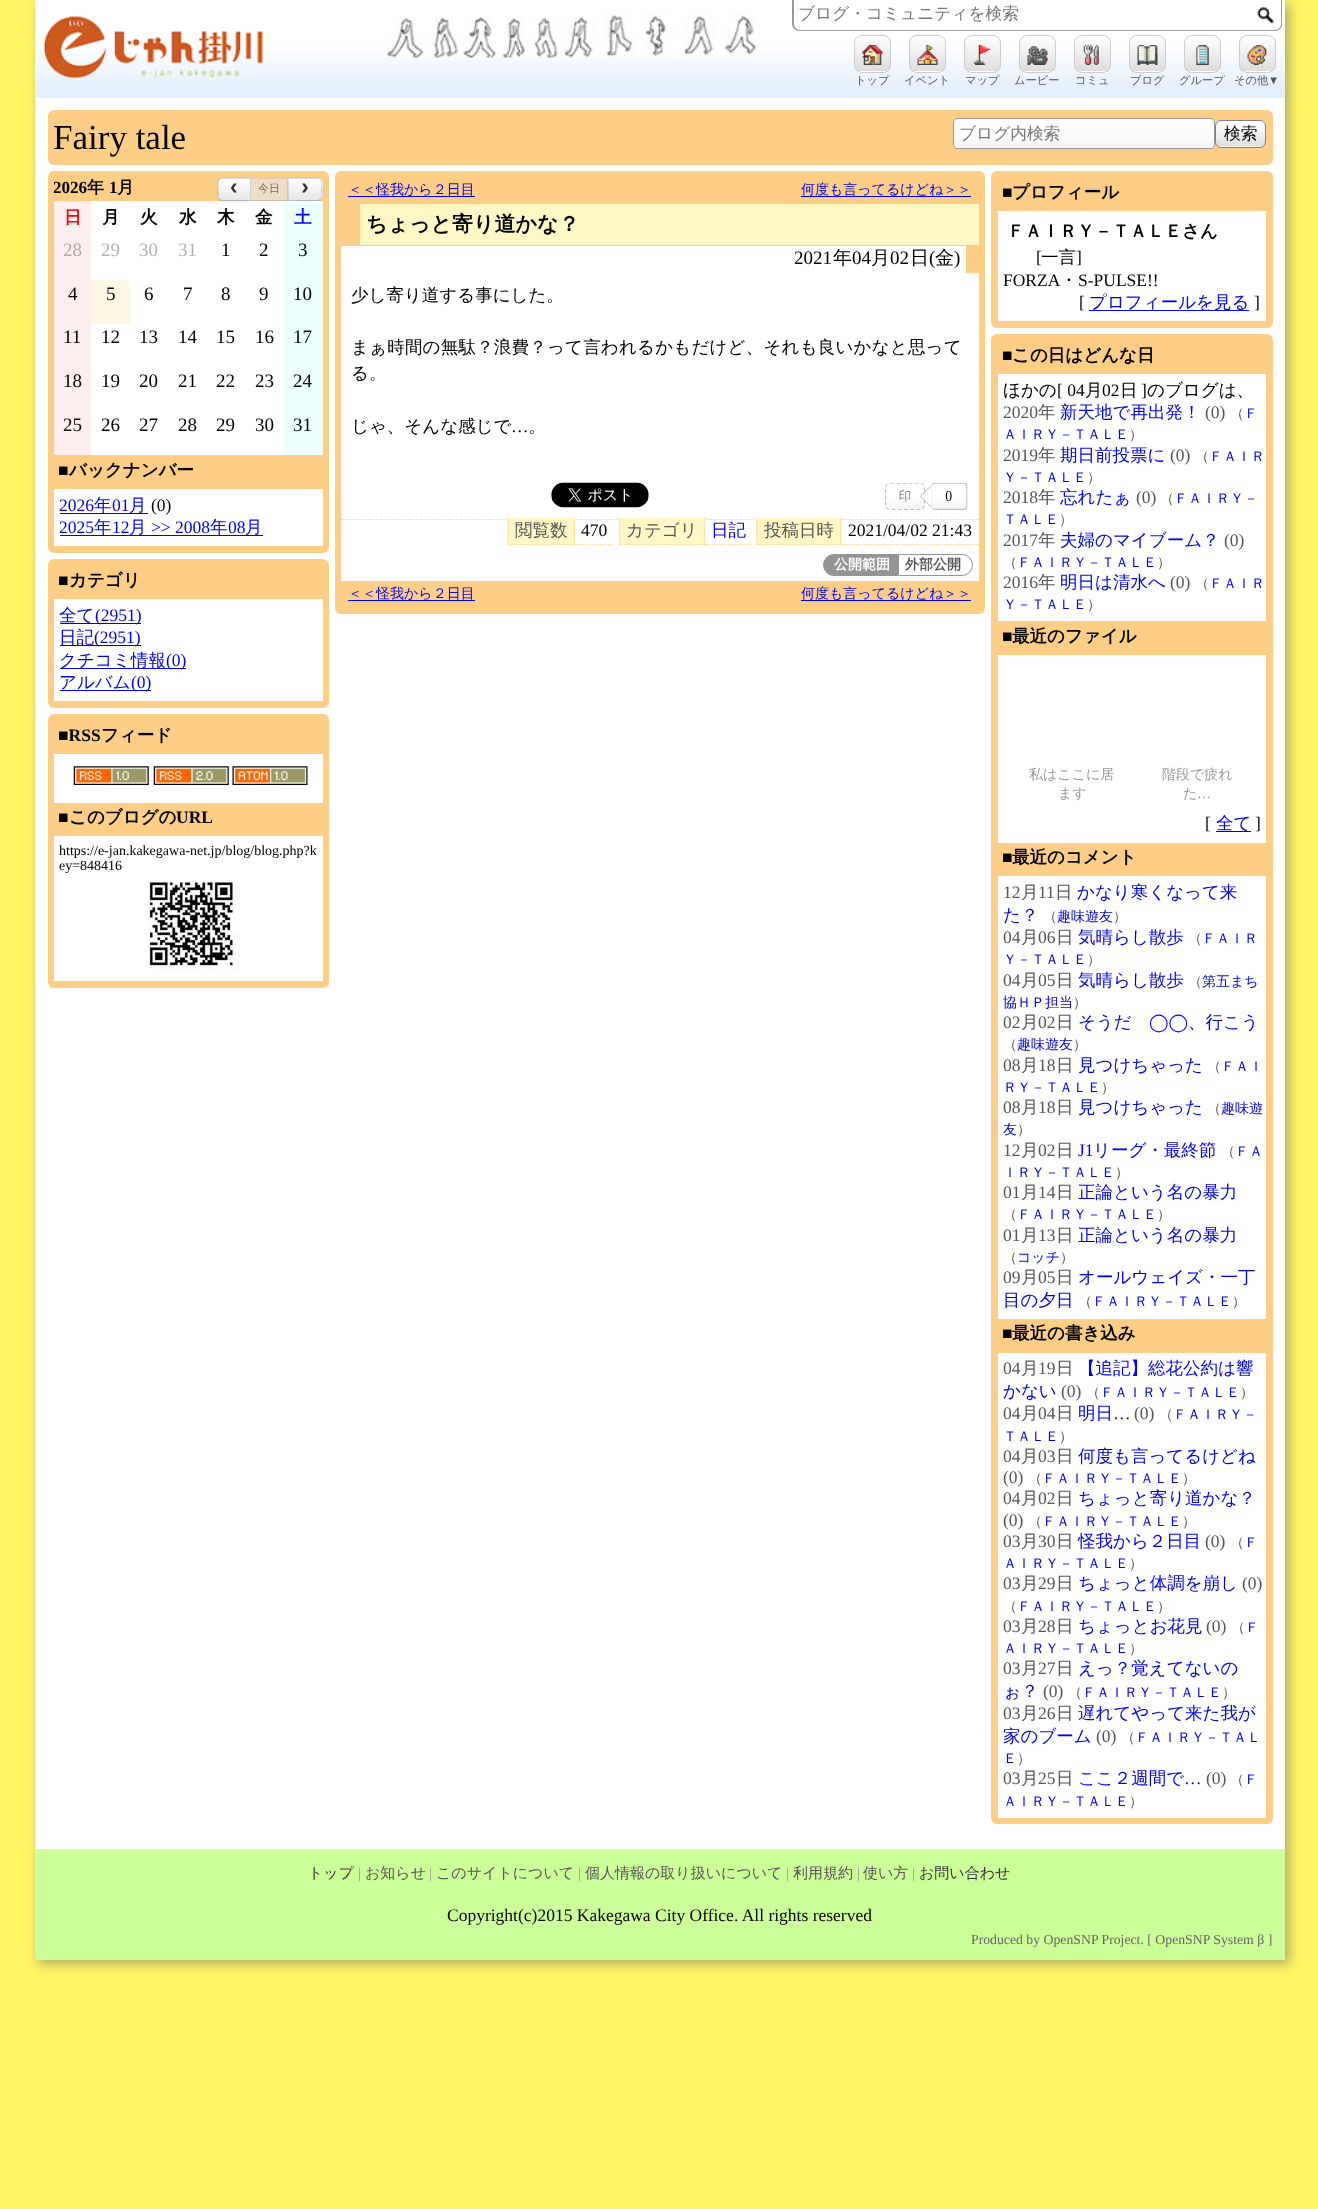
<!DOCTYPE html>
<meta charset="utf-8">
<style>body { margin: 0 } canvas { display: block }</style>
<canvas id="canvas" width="1318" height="2209"></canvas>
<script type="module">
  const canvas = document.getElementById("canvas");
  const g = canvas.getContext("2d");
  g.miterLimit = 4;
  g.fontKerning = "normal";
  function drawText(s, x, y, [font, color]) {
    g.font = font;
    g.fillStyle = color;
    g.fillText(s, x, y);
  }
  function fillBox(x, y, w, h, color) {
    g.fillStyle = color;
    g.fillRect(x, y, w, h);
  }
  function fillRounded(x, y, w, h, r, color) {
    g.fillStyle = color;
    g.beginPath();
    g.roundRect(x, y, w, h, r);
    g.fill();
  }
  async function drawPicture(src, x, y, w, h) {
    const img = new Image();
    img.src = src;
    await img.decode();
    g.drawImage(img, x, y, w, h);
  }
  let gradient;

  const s1 = ["500 16.7px WenQuanYi Zen Hei", "#757575"];
  const s2 = ["500 11.25px WenQuanYi Zen Hei", "#555555"];
  const s3 = ["11.25px Liberation Serif", "#555555"];
  const s4 = ["35px Liberation Serif", "#000000"];
  const s5 = ["500 16.7px WenQuanYi Zen Hei", "#000000"];
  const s6 = ["bold 17px Liberation Serif", "#000000"];
  const s7 = ["bold 17px WenQuanYi Zen Hei", "#000000"];
  const s8 = ["bold 23px Liberation Mono", "#333333"];
  const s9 = ["500 11px WenQuanYi Zen Hei", "#7A6950"];
  const s10 = ["bold 17.5px WenQuanYi Zen Hei", "#FF0000"];
  const s11 = ["bold 17.5px WenQuanYi Zen Hei", "#000000"];
  const s12 = ["bold 17.5px WenQuanYi Zen Hei", "#0000FF"];
  const s13 = ["19px Liberation Serif", "#B3A7A7"];
  const s14 = ["19px Liberation Serif", "#B3B3B3"];
  const s15 = ["19px Liberation Serif", "#000000"];
  const s16 = ["bold 17.5px Liberation Serif", "#000000"];
  const s17 = ["17.5px Liberation Serif", "#0000EE"];
  const s18 = ["500 17.5px WenQuanYi Zen Hei", "#0000EE"];
  const s19 = ["17.5px Liberation Serif", "#000000"];
  const s20 = ["14px Liberation Serif", "#000000"];
  const s21 = ["500 14px WenQuanYi Zen Hei", "#0000EE"];
  const s22 = ["bold 21px WenQuanYi Zen Hei", "#000000"];
  const s23 = ["500 19px WenQuanYi Zen Hei", "#000000"];
  const s24 = ["500 17.5px WenQuanYi Zen Hei", "#000000"];
  const s25 = ["500 17.5px WenQuanYi Zen Hei", "#555555"];
  const s26 = ["bold 14px WenQuanYi Zen Hei", "#FFFFFF"];
  const s27 = ["bold 14px WenQuanYi Zen Hei", "#555555"];
  const s28 = ["17.5px Liberation Serif", "#555555"];
  const s29 = ["500 14px WenQuanYi Zen Hei", "#555555"];
  const s30 = ["500 14px WenQuanYi Zen Hei", "#999999"];
  const s31 = ["14px Liberation Serif", "#999999"];
  const s32 = ["17.5px DejaVu Sans", "#0000EE"];
  const s33 = ["500 15px WenQuanYi Zen Hei", "#333333"];
  const s34 = ["15px Liberation Serif", "#999999"];
  const s35 = ["500 15px WenQuanYi Zen Hei", "#555555"];
  const s36 = ["13.75px Liberation Serif", "#666666"];

  fillBox(0, 0, 1318, 2209, "#FFF464");
  g.fillStyle = "rgba(100, 100, 100, 0.5)";
  g.filter = "blur(6px)";
  g.beginPath();
  g.rect(39, 4, 1250, 1960);
  g.fill();
  g.filter = "none";
  fillBox(35, 98, 1250, 1751, "#FFFFFF");
  gradient = g.createLinearGradient(660, 0, 660, 88);
  gradient.addColorStop(0.5, "#FFFFFF");
  gradient.addColorStop(1, "#E4F0FD");
  g.fillStyle = gradient;
  g.fillRect(35, 0, 1250, 88);
  await drawPicture("pic1.png", 43, 16, 221, 63);
  await drawPicture("pic2.png", 385, 9, 375, 49);
  g.fillStyle = "#999999";
  g.beginPath();
  g.moveTo(792, 0);
  g.lineTo(1282, 0);
  g.lineTo(1282, 24);
  g.bezierCurveTo(1282, 28, 1279, 31, 1275, 31);
  g.lineTo(800, 31);
  g.bezierCurveTo(796, 31, 792, 28, 792, 24);
  g.closePath();
  g.moveTo(794, 0);
  g.lineTo(1281, 0);
  g.lineTo(1281, 24);
  g.bezierCurveTo(1281, 27, 1278, 30, 1275, 30);
  g.lineTo(800, 30);
  g.bezierCurveTo(797, 30, 794, 27, 794, 24);
  g.closePath();
  g.fill("evenodd");
  drawText("ブログ・コミュニティを検索", 798, 19, s1);
  await drawPicture("pic3.png", 1257, 7, 17, 17);
  g.save();
  g.beginPath();
  g.roundRect(854, 35, 37, 38, 8);
  g.clip();
  gradient = g.createLinearGradient(873, 36, 873, 71);
  gradient.addColorStop(0, "#FFFFFF");
  gradient.addColorStop(1, "#DDDDDD");
  g.fillStyle = gradient;
  g.fillRect(854, 36, 37, 35);
  gradient = g.createLinearGradient(873, 71, 873, 106);
  gradient.addColorStop(0, "#FFFFFF");
  gradient.addColorStop(1, "#DDDDDD");
  g.fillStyle = gradient;
  g.fillRect(854, 71, 37, 2);
  g.restore();
  g.beginPath();
  g.roundRect(854.5, 35.5, 36, 37, 7.5);
  g.strokeStyle = "#CCCCCC";
  g.stroke();
  await drawPicture("pic4.png", 862, 45, 21, 20);
  drawText("トップ", 855, 84, s2);
  g.save();
  g.beginPath();
  g.roundRect(909, 35, 37, 38, 8);
  g.clip();
  gradient = g.createLinearGradient(928, 36, 928, 71);
  gradient.addColorStop(0, "#FFFFFF");
  gradient.addColorStop(1, "#DDDDDD");
  g.fillStyle = gradient;
  g.fillRect(909, 36, 37, 35);
  gradient = g.createLinearGradient(928, 71, 928, 106);
  gradient.addColorStop(0, "#FFFFFF");
  gradient.addColorStop(1, "#DDDDDD");
  g.fillStyle = gradient;
  g.fillRect(909, 71, 37, 2);
  g.restore();
  g.beginPath();
  g.roundRect(909.5, 35.5, 36, 37, 7.5);
  g.stroke();
  await drawPicture("pic5.png", 917, 45, 21, 20);
  drawText("イベント", 904, 84, s2);
  g.save();
  g.beginPath();
  g.roundRect(964, 35, 37, 38, 8);
  g.clip();
  gradient = g.createLinearGradient(983, 36, 983, 71);
  gradient.addColorStop(0, "#FFFFFF");
  gradient.addColorStop(1, "#DDDDDD");
  g.fillStyle = gradient;
  g.fillRect(964, 36, 37, 35);
  gradient = g.createLinearGradient(983, 71, 983, 106);
  gradient.addColorStop(0, "#FFFFFF");
  gradient.addColorStop(1, "#DDDDDD");
  g.fillStyle = gradient;
  g.fillRect(964, 71, 37, 2);
  g.restore();
  g.beginPath();
  g.roundRect(964.5, 35.5, 36, 37, 7.5);
  g.stroke();
  await drawPicture("pic6.png", 973, 45, 18, 20);
  drawText("マップ", 965, 84, s2);
  g.save();
  g.beginPath();
  g.roundRect(1019, 35, 37, 38, 8);
  g.clip();
  gradient = g.createLinearGradient(1038, 36, 1038, 71);
  gradient.addColorStop(0, "#FFFFFF");
  gradient.addColorStop(1, "#DDDDDD");
  g.fillStyle = gradient;
  g.fillRect(1019, 36, 37, 35);
  gradient = g.createLinearGradient(1038, 71, 1038, 106);
  gradient.addColorStop(0, "#FFFFFF");
  gradient.addColorStop(1, "#DDDDDD");
  g.fillStyle = gradient;
  g.fillRect(1019, 71, 37, 2);
  g.restore();
  g.beginPath();
  g.roundRect(1019.5, 35.5, 36, 37, 7.5);
  g.stroke();
  await drawPicture("pic7.png", 1027, 46, 21, 19);
  drawText("ムービー", 1014, 84, s2);
  g.save();
  g.beginPath();
  g.roundRect(1074, 35, 37, 38, 8);
  g.clip();
  gradient = g.createLinearGradient(1093, 36, 1093, 71);
  gradient.addColorStop(0, "#FFFFFF");
  gradient.addColorStop(1, "#DDDDDD");
  g.fillStyle = gradient;
  g.fillRect(1074, 36, 37, 35);
  gradient = g.createLinearGradient(1093, 71, 1093, 106);
  gradient.addColorStop(0, "#FFFFFF");
  gradient.addColorStop(1, "#DDDDDD");
  g.fillStyle = gradient;
  g.fillRect(1074, 71, 37, 2);
  g.restore();
  g.beginPath();
  g.roundRect(1074.5, 35.5, 36, 37, 7.5);
  g.stroke();
  await drawPicture("pic8.png", 1083, 45, 16, 20);
  drawText("コミュ", 1075, 84, s2);
  g.save();
  g.beginPath();
  g.roundRect(1129, 35, 37, 38, 8);
  g.clip();
  gradient = g.createLinearGradient(1148, 36, 1148, 71);
  gradient.addColorStop(0, "#FFFFFF");
  gradient.addColorStop(1, "#DDDDDD");
  g.fillStyle = gradient;
  g.fillRect(1129, 36, 37, 35);
  gradient = g.createLinearGradient(1148, 71, 1148, 106);
  gradient.addColorStop(0, "#FFFFFF");
  gradient.addColorStop(1, "#DDDDDD");
  g.fillStyle = gradient;
  g.fillRect(1129, 71, 37, 2);
  g.restore();
  g.beginPath();
  g.roundRect(1129.5, 35.5, 36, 37, 7.5);
  g.stroke();
  await drawPicture("pic9.png", 1137, 45, 21, 20);
  drawText("ブログ", 1130, 84, s2);
  g.save();
  g.beginPath();
  g.roundRect(1184, 35, 37, 38, 8);
  g.clip();
  gradient = g.createLinearGradient(1203, 36, 1203, 71);
  gradient.addColorStop(0, "#FFFFFF");
  gradient.addColorStop(1, "#DDDDDD");
  g.fillStyle = gradient;
  g.fillRect(1184, 36, 37, 35);
  gradient = g.createLinearGradient(1203, 71, 1203, 106);
  gradient.addColorStop(0, "#FFFFFF");
  gradient.addColorStop(1, "#DDDDDD");
  g.fillStyle = gradient;
  g.fillRect(1184, 71, 37, 2);
  g.restore();
  g.beginPath();
  g.roundRect(1184.5, 35.5, 36, 37, 7.5);
  g.stroke();
  await drawPicture("pic10.png", 1196, 45, 13, 20);
  drawText("グループ", 1179, 84, s2);
  g.save();
  g.beginPath();
  g.roundRect(1239, 35, 37, 38, 8);
  g.clip();
  gradient = g.createLinearGradient(1258, 36, 1258, 71);
  gradient.addColorStop(0, "#FFFFFF");
  gradient.addColorStop(1, "#DDDDDD");
  g.fillStyle = gradient;
  g.fillRect(1239, 36, 37, 35);
  gradient = g.createLinearGradient(1258, 71, 1258, 106);
  gradient.addColorStop(0, "#FFFFFF");
  gradient.addColorStop(1, "#DDDDDD");
  g.fillStyle = gradient;
  g.fillRect(1239, 71, 37, 2);
  g.restore();
  g.beginPath();
  g.roundRect(1239.5, 35.5, 36, 37, 7.5);
  g.stroke();
  await drawPicture("pic11.png", 1247, 45, 20, 20);
  drawText("その他", 1234, 84, s2);
  drawText("▼", 1268, 84, s3);
  fillBox(35, 88, 1250, 10, "#E4F0FD");
  fillRounded(48, 110, 1225, 55, 6, "#FECE87");
  drawText("Fairy tale", 53, 149, s4);
  g.save();
  g.beginPath();
  g.roundRect(953, 118, 262, 31, 4);
  g.clip();
  gradient = g.createLinearGradient(1084, 119, 1084, 148);
  gradient.addColorStop(0.1, "#FFFFFF");
  gradient.addColorStop(0.7, "#FAFAFA");
  gradient.addColorStop(0.9, "#F5F5F5");
  g.fillStyle = gradient;
  g.fillRect(953, 119, 262, 29);
  g.restore();
  g.beginPath();
  g.roundRect(953.5, 118.5, 261, 30, 3.5);
  g.strokeStyle = "#999999";
  g.stroke();
  drawText("ブログ内検索", 959, 139, s1);
  await drawPicture("pic12.png", 1215, 120, 52, 28);
  g.beginPath();
  g.roundRect(1215.5, 120.5, 50, 27, 5.5);
  g.strokeStyle = "#808080";
  g.stroke();
  drawText("検索", 1224, 139, s5);
  fillRounded(48, 171, 281, 382, 6, "#FECE87");
  drawText("2026", 53, 193, s6);
  drawText("年", 87, 193, s7);
  drawText("1", 109, 193, s6);
  drawText("月", 117, 193, s7);
  fillBox(91, 201, 193, 254, "#FFFFFF");
  g.fillStyle = "rgba(0, 0, 0, 0.05)";
  g.filter = "blur(1px)";
  g.beginPath();
  g.roundRect(218, 179, 33, 24, 5);
  g.fill();
  g.filter = "none";
  g.fillStyle = "#F5F5F5";
  g.beginPath();
  g.roundRect(218, 178, 33, 23, [5, 0, 0, 5]);
  g.fill();
  g.save();
  g.beginPath();
  g.roundRect(218, 178, 33, 23, [5, 0, 0, 5]);
  g.clip();
  gradient = g.createLinearGradient(234, 179, 234, 200);
  gradient.addColorStop(0, "#FFFFFF");
  gradient.addColorStop(1, "#E6E6E6");
  g.fillStyle = gradient;
  g.fillRect(218, 179, 33, 21);
  g.restore();
  g.fillStyle = "rgba(0, 0, 0, 0.1)";
  g.beginPath();
  g.moveTo(222.5, 177.5);
  g.bezierCurveTo(221, 177.5, 220, 178, 219, 179);
  g.lineTo(220, 180);
  g.bezierCurveTo(220.5, 179.5, 221.5, 179, 222.5, 179);
  g.lineTo(250, 179);
  g.lineTo(251, 177.5);
  g.closePath();
  g.fill();
  g.beginPath();
  g.moveTo(251, 178);
  g.lineTo(251, 201);
  g.lineTo(250, 200);
  g.lineTo(250, 179);
  g.closePath();
  g.fill();
  g.fillStyle = "rgba(0, 0, 0, 0.25)";
  g.beginPath();
  g.moveTo(251, 201);
  g.lineTo(250, 200);
  g.lineTo(222.5, 200);
  g.bezierCurveTo(221.5, 200, 220.5, 199.5, 220, 199);
  g.lineTo(219, 199.5);
  g.bezierCurveTo(220, 200.5, 221, 201, 222.5, 201);
  g.closePath();
  g.fill();
  g.fillStyle = "rgba(0, 0, 0, 0.1)";
  g.beginPath();
  g.moveTo(217.5, 182.5);
  g.lineTo(217.5, 196);
  g.bezierCurveTo(217.5, 197.5, 218, 199, 219, 199.5);
  g.lineTo(220, 199);
  g.bezierCurveTo(218, 197, 219, 191.5, 219, 189);
  g.bezierCurveTo(219, 187, 218, 182, 220, 180);
  g.lineTo(219, 179);
  g.bezierCurveTo(218, 180, 217.5, 181, 217.5, 182.5);
  g.closePath();
  g.fill();
  drawText("‹", 227, 194, s8);
  fillBox(250, 178, 38, 23, "rgba(230, 230, 230, 0.65)");
  g.fillStyle = "#DFCFB6";
  g.beginPath();
  g.moveTo(250, 177.5);
  g.lineTo(289, 177.5);
  g.lineTo(287.5, 179);
  g.lineTo(251, 179);
  g.closePath();
  g.fill();
  g.beginPath();
  g.moveTo(289, 177.5);
  g.lineTo(289, 201);
  g.lineTo(287.5, 200);
  g.lineTo(287.5, 179);
  g.closePath();
  g.fill();
  g.fillStyle = "rgba(0, 0, 0, 0.16)";
  g.beginPath();
  g.moveTo(289, 201);
  g.lineTo(250, 201);
  g.lineTo(251, 200);
  g.lineTo(287.5, 200);
  g.closePath();
  g.fill();
  g.fillStyle = "rgba(0, 0, 0, 0.07)";
  g.beginPath();
  g.moveTo(250, 201);
  g.lineTo(250, 177.5);
  g.lineTo(251, 179);
  g.lineTo(251, 200);
  g.closePath();
  g.fill();
  drawText("今日", 258, 192, s9);
  g.fillStyle = "rgba(0, 0, 0, 0.05)";
  g.filter = "blur(1px)";
  g.beginPath();
  g.roundRect(288, 179, 35, 24, 5);
  g.fill();
  g.filter = "none";
  g.fillStyle = "#F5F5F5";
  g.beginPath();
  g.roundRect(288, 178, 35, 23, [0, 5, 5, 0]);
  g.fill();
  g.save();
  g.beginPath();
  g.roundRect(288, 178, 35, 23, [0, 5, 5, 0]);
  g.clip();
  gradient = g.createLinearGradient(305, 179, 305, 200);
  gradient.addColorStop(0, "#FFFFFF");
  gradient.addColorStop(1, "#E6E6E6");
  g.fillStyle = gradient;
  g.fillRect(288, 179, 35, 21);
  g.restore();
  g.fillStyle = "rgba(0, 0, 0, 0.1)";
  g.beginPath();
  g.moveTo(287.5, 177.5);
  g.lineTo(289, 179);
  g.lineTo(317.5, 179);
  g.bezierCurveTo(318.5, 179, 319.5, 179.5, 320, 180);
  g.lineTo(321, 179);
  g.bezierCurveTo(320, 178, 319, 177.5, 317.5, 177.5);
  g.closePath();
  g.fill();
  g.beginPath();
  g.moveTo(322.5, 196);
  g.lineTo(322.5, 182.5);
  g.bezierCurveTo(322.5, 181, 322, 180, 321, 179);
  g.lineTo(320, 180);
  g.bezierCurveTo(322, 182, 321, 187, 321, 189);
  g.bezierCurveTo(321, 191.5, 322, 197, 320, 199);
  g.lineTo(321, 199.5);
  g.bezierCurveTo(322, 199, 322.5, 197.5, 322.5, 196);
  g.closePath();
  g.fill();
  g.fillStyle = "rgba(0, 0, 0, 0.25)";
  g.beginPath();
  g.moveTo(321, 199.5);
  g.bezierCurveTo(320, 200.5, 319, 201, 317.5, 201);
  g.lineTo(288, 201);
  g.lineTo(289, 200);
  g.lineTo(317.5, 200);
  g.bezierCurveTo(318.5, 200, 319.5, 199.5, 320, 199);
  g.closePath();
  g.fill();
  g.fillStyle = "rgba(0, 0, 0, 0.1)";
  g.beginPath();
  g.moveTo(289, 179);
  g.lineTo(287.5, 177.5);
  g.lineTo(287.5, 201);
  g.lineTo(289, 200);
  g.closePath();
  g.fill();
  drawText("›", 298, 194, s8);
  fillBox(54, 201, 37, 254, "#FFEEEE");
  drawText("日", 64, 223, s10);
  drawText("月", 102, 223, s11);
  drawText("火", 140, 223, s11);
  drawText("水", 179, 223, s11);
  drawText("木", 217, 223, s11);
  drawText("金", 255, 223, s11);
  fillBox(284, 201, 39, 254, "#EEFFFF");
  drawText("土", 294, 223, s12);
  drawText("28", 63, 256, s13);
  drawText("29", 101, 256, s14);
  drawText("30", 139, 256, s14);
  drawText("31", 178, 256, s14);
  drawText("1", 221, 256, s15);
  drawText("2", 259, 256, s15);
  drawText("3", 298, 256, s15);
  fillBox(91, 280, 39, 44, "#FCF8E3");
  drawText("4", 68, 300, s15);
  drawText("5", 106, 300, s15);
  drawText("6", 144, 300, s15);
  drawText("7", 183, 300, s15);
  drawText("8", 221, 300, s15);
  drawText("9", 259, 300, s15);
  drawText("10", 293, 300, s15);
  drawText("11", 63, 343, s15);
  drawText("12", 101, 343, s15);
  drawText("13", 139, 343, s15);
  drawText("14", 178, 343, s15);
  drawText("15", 216, 343, s15);
  drawText("16", 255, 343, s15);
  drawText("17", 293, 343, s15);
  drawText("18", 63, 387, s15);
  drawText("19", 101, 387, s15);
  drawText("20", 139, 387, s15);
  drawText("21", 178, 387, s15);
  drawText("22", 216, 387, s15);
  drawText("23", 255, 387, s15);
  drawText("24", 293, 387, s15);
  drawText("25", 63, 431, s15);
  drawText("26", 101, 431, s15);
  drawText("27", 139, 431, s15);
  drawText("28", 178, 431, s15);
  drawText("29", 216, 431, s15);
  drawText("30", 255, 431, s15);
  drawText("31", 293, 431, s15);
  drawText("■", 58, 476, s16);
  drawText("バックナンバー", 69, 476, s11);
  fillBox(54, 489, 269, 57, "#FFFFFF");
  drawText("2026", 59, 511, s17);
  fillBox(60, 513, 88, 1, "#0000EE");
  drawText("年", 94, 511, s18);
  drawText("01", 112, 511, s17);
  drawText("月", 129, 511, s18);
  drawText("(0)", 151, 511, s19);
  drawText("2025", 59, 533, s17);
  fillBox(60, 535, 203, 1, "#0000EE");
  drawText("年", 94, 533, s18);
  drawText("12", 112, 533, s17);
  drawText("月", 129, 533, s18);
  drawText(">> 2008", 151, 533, s17);
  drawText("年", 210, 533, s18);
  drawText("08", 228, 533, s17);
  drawText("月", 245, 533, s18);
  fillRounded(48, 559, 281, 149, 6, "#FECE87");
  drawText("■", 58, 586, s16);
  drawText("カテゴリ", 69, 586, s11);
  fillBox(54, 599, 269, 102, "#FFFFFF");
  drawText("全て", 59, 621, s18);
  fillBox(60, 623, 81, 1, "#0000EE");
  drawText("(2951)", 95, 621, s17);
  fillBox(60, 645, 81, 1, "#0000EE");
  drawText("日記", 59, 643, s18);
  drawText("(2951)", 94, 643, s17);
  fillBox(60, 668, 126, 1, "#0000EE");
  drawText("クチコミ情報", 59, 666, s18);
  drawText("(0)", 166, 666, s17);
  drawText("アルバム", 59, 688, s18);
  fillBox(60, 690, 91, 1, "#0000EE");
  drawText("(0)", 131, 688, s17);
  fillRounded(48, 714, 281, 274, 6, "#FECE87");
  drawText("■RSS", 58, 741, s16);
  drawText("フィード", 101, 741, s11);
  fillBox(54, 754, 269, 49, "#FFFFFF");
  await drawPicture("pic13.png", 73, 766, 76, 19);
  await drawPicture("pic14.png", 153, 766, 76, 19);
  await drawPicture("pic15.png", 232, 766, 76, 19);
  drawText("■", 58, 823, s16);
  drawText("このブログの", 69, 823, s11);
  drawText("URL", 176, 823, s16);
  fillBox(54, 836, 269, 145, "#FFFFFF");
  drawText("https://e-jan.kakegawa-net.jp/blog/blog.php?k", 59, 855, s20);
  drawText("ey=848416", 59, 870, s20);
  await drawPicture("pic16.png", 149, 882, 91, 91);
  fillRounded(335, 171, 650, 443, 6, "#FECE87");
  drawText("＜＜怪我から２日目", 348, 194, s21);
  fillBox(348, 196, 127, 1, "#0000EE");
  fillBox(801, 196, 170, 1, "#0000EE");
  drawText("何度も言ってるけどね＞＞", 801, 194, s21);
  fillBox(341, 246, 638, 335, "#FFFFFF");
  fillBox(360, 204, 619, 41, "#FFF8C5");
  drawText("ちょっと寄り道かな？", 366, 231, s22);
  fillBox(966, 246, 13, 27, "#FECE87");
  drawText("2021", 794, 264, s15);
  drawText("年", 833, 264, s23);
  drawText("04", 852, 264, s15);
  drawText("月", 871, 264, s23);
  drawText("02", 890, 264, s15);
  drawText("日", 910, 264, s23);
  drawText("(", 929, 264, s15);
  drawText("金", 935, 264, s23);
  drawText(")", 954, 264, s15);
  drawText("少し寄り道する事にした。", 351, 301, s24);
  g.letterSpacing = "0.2px";
  drawText("まぁ時間の無駄？浪費？って言われるかもだけど、それも良いかなと思って", 351, 353, s24);
  g.letterSpacing = "0px";
  drawText("る。", 351, 379, s24);
  drawText("じゃ、そんな感じで", 351, 432, s24);
  drawText("…", 511, 432, s19);
  drawText("。", 528, 432, s24);
  await drawPicture("pic17.png", 551, 482, 98, 26);
  await drawPicture("pic18.png", 885, 483, 83, 27);
  g.beginPath();
  g.moveTo(341, 519.5);
  g.lineTo(979, 519.5);
  g.strokeStyle = "#FECE87";
  g.lineWidth = 1.2;
  g.setLineDash([1.25, 1.25]);
  g.stroke();
  fillBox(508, 518, 67, 27, "#FFF8C5");
  drawText("閲覧数", 515, 536, s25);
  g.beginPath();
  g.moveTo(574.5, 517.5);
  g.lineTo(574.5, 545);
  g.stroke();
  g.beginPath();
  g.moveTo(507.5, 544.5);
  g.lineTo(575, 544.5);
  g.stroke();
  g.beginPath();
  g.moveTo(508, 517.5);
  g.lineTo(508, 545);
  g.stroke();
  drawText("470", 581, 536, s19);
  g.beginPath();
  g.moveTo(575, 544.5);
  g.lineTo(614, 544.5);
  g.stroke();
  fillBox(619, 518, 86, 27, "#FFF8C5");
  drawText("カテゴリ", 626, 536, s25);
  g.beginPath();
  g.moveTo(704.5, 517.5);
  g.lineTo(704.5, 545);
  g.stroke();
  g.beginPath();
  g.moveTo(619, 544.5);
  g.lineTo(705, 544.5);
  g.stroke();
  g.beginPath();
  g.moveTo(619.5, 517.5);
  g.lineTo(619.5, 545);
  g.stroke();
  drawText("日記", 711, 536, s18);
  g.beginPath();
  g.moveTo(705, 544.5);
  g.lineTo(752.5, 544.5);
  g.stroke();
  fillBox(756, 518, 85, 27, "#FFF8C5");
  drawText("投稿日時", 764, 536, s25);
  g.beginPath();
  g.moveTo(840.5, 517.5);
  g.lineTo(840.5, 545);
  g.stroke();
  g.beginPath();
  g.moveTo(756, 544.5);
  g.lineTo(841, 544.5);
  g.stroke();
  g.beginPath();
  g.moveTo(757, 517.5);
  g.lineTo(757, 545);
  g.stroke();
  drawText("2021/04/02 21:43", 848, 536, s19);
  g.beginPath();
  g.moveTo(841, 544.5);
  g.lineTo(979, 544.5);
  g.stroke();
  g.fillStyle = "#949495";
  g.beginPath();
  g.roundRect(823.5, 554.5, 74, 21, [10.5, 0, 0, 10.5]);
  g.fill();
  g.strokeStyle = "#949495";
  g.lineWidth = 1;
  g.setLineDash([]);
  g.stroke();
  drawText("公開範囲", 834, 569, s26);
  g.beginPath();
  g.roundRect(898.5, 554.5, 74, 21, [0, 10.5, 10.5, 0]);
  g.stroke();
  drawText("外部公開", 905, 569, s27);
  drawText("＜＜怪我から２日目", 348, 598, s21);
  fillBox(348, 600, 127, 1, "#0000EE");
  fillBox(801, 600, 170, 1, "#0000EE");
  drawText("何度も言ってるけどね＞＞", 801, 598, s21);
  fillRounded(991, 171, 282, 157, 6, "#FECE87");
  drawText("■", 1002, 198, s16);
  drawText("プロフィール", 1012, 198, s11);
  fillBox(998, 211, 268, 110, "#FFFFFF");
  drawText("ＦＡＩＲＹ－ＴＡＬＥさん", 1007, 237, s11);
  drawText("[", 1036, 263, s19);
  drawText("一言", 1041, 263, s24);
  drawText("]", 1076, 263, s19);
  drawText("FORZA", 1003, 286, s19);
  drawText("・", 1060, 286, s24);
  drawText("S-PULSE!!", 1078, 286, s19);
  drawText("[", 1079, 308, s19);
  fillBox(1089, 310, 160, 1, "#0000EE");
  drawText("プロフィールを見る", 1089, 308, s18);
  drawText("]", 1254, 308, s19);
  fillRounded(991, 334, 282, 1490, 6, "#FECE87");
  drawText("■", 1002, 361, s16);
  drawText("この日はどんな日", 1012, 361, s11);
  fillBox(998, 374, 268, 247, "#FFFFFF");
  drawText("ほかの", 1003, 396, s24);
  drawText("[ 04", 1057, 396, s19);
  drawText("月", 1085, 396, s24);
  drawText("02", 1102, 396, s19);
  drawText("日", 1120, 396, s24);
  drawText("]", 1141, 396, s19);
  drawText("のブログは、", 1147, 396, s24);
  drawText("2020", 1003, 418, s28);
  drawText("年", 1038, 418, s25);
  drawText("新天地で再出発！", 1060, 418, s18);
  drawText("(0)", 1205, 418, s28);
  drawText("（", 1230, 418, s29);
  drawText("Ｆ", 1244, 418, s21);
  drawText("ＡＩＲＹ－ＴＡＬＥ", 1003, 439, s21);
  drawText("）", 1129, 439, s29);
  drawText("2019", 1003, 461, s28);
  drawText("年", 1038, 461, s25);
  drawText("期日前投票に", 1060, 461, s18);
  drawText("(0)", 1170, 461, s28);
  drawText("（", 1195, 461, s29);
  drawText("ＦＡＩＲ", 1209, 461, s21);
  drawText("Ｙ－ＴＡＬＥ", 1003, 482, s21);
  drawText("）", 1087, 482, s29);
  drawText("2018", 1003, 503, s28);
  drawText("年", 1038, 503, s25);
  drawText("忘れたぁ", 1060, 503, s18);
  drawText("(0)", 1136, 503, s28);
  drawText("（", 1160, 503, s29);
  drawText("ＦＡＩＲＹ－", 1174, 503, s21);
  drawText("ＴＡＬＥ", 1003, 524, s21);
  drawText("）", 1059, 524, s29);
  drawText("2017", 1003, 546, s28);
  drawText("年", 1038, 546, s25);
  drawText("夫婦のマイブーム？", 1060, 546, s18);
  drawText("(0)", 1224, 546, s28);
  drawText("（", 1003, 567, s29);
  drawText("ＦＡＩＲＹ－ＴＡＬＥ", 1017, 567, s21);
  drawText("）", 1157, 567, s29);
  drawText("2016", 1003, 588, s28);
  drawText("年", 1038, 588, s25);
  drawText("明日は清水へ", 1060, 588, s18);
  drawText("(0)", 1170, 588, s28);
  drawText("（", 1195, 588, s29);
  drawText("ＦＡＩＲ", 1209, 588, s21);
  drawText("Ｙ－ＴＡＬＥ", 1003, 609, s21);
  drawText("）", 1087, 609, s29);
  drawText("■", 1002, 642, s16);
  drawText("最近のファイル", 1012, 642, s11);
  fillBox(998, 655, 268, 188, "#FFFFFF");
  drawText("私はここに居", 1029, 779, s30);
  drawText("ます", 1058, 798, s30);
  drawText("階段で疲れ", 1162, 779, s30);
  drawText("た", 1183, 798, s30);
  drawText("…", 1197, 798, s31);
  drawText("[", 1205, 829, s19);
  drawText("全て", 1216, 829, s18);
  fillBox(1216, 831, 35, 1, "#0000EE");
  drawText("]", 1255, 829, s19);
  drawText("■", 1002, 863, s16);
  drawText("最近のコメント", 1012, 863, s11);
  fillBox(998, 876, 268, 443, "#FFFFFF");
  drawText("12", 1003, 898, s28);
  drawText("月", 1021, 898, s25);
  drawText("11", 1038, 898, s28);
  drawText("日", 1055, 898, s25);
  drawText("かなり寒くなって来", 1077, 898, s18);
  drawText("た？", 1003, 921, s18);
  drawText("（", 1043, 921, s29);
  drawText("趣味遊友", 1057, 921, s21);
  drawText("）", 1113, 921, s29);
  drawText("04", 1003, 943, s28);
  drawText("月", 1021, 943, s25);
  drawText("06", 1038, 943, s28);
  drawText("日", 1056, 943, s25);
  drawText("気晴らし散歩", 1078, 943, s18);
  drawText("（", 1188, 943, s29);
  drawText("ＦＡＩＲ", 1202, 943, s21);
  drawText("Ｙ－ＴＡＬＥ", 1003, 964, s21);
  drawText("）", 1087, 964, s29);
  drawText("04", 1003, 986, s28);
  drawText("月", 1021, 986, s25);
  drawText("05", 1038, 986, s28);
  drawText("日", 1056, 986, s25);
  drawText("気晴らし散歩", 1078, 986, s18);
  drawText("（", 1188, 986, s29);
  drawText("第五まち", 1202, 986, s21);
  drawText("協ＨＰ担当", 1003, 1007, s21);
  drawText("）", 1073, 1007, s29);
  drawText("02", 1003, 1028, s28);
  drawText("月", 1021, 1028, s25);
  drawText("02", 1038, 1028, s28);
  drawText("日", 1056, 1028, s25);
  drawText("そうだ", 1078, 1028, s18);
  drawText("◯◯", 1149, 1028, s32);
  drawText("、行こう", 1188, 1028, s18);
  drawText("（", 1003, 1049, s29);
  drawText("趣味遊友", 1017, 1049, s21);
  drawText("）", 1073, 1049, s29);
  drawText("08", 1003, 1071, s28);
  drawText("月", 1021, 1071, s25);
  drawText("18", 1038, 1071, s28);
  drawText("日", 1056, 1071, s25);
  drawText("見つけちゃった", 1078, 1071, s18);
  drawText("（", 1207, 1071, s29);
  drawText("ＦＡＩ", 1221, 1071, s21);
  drawText("ＲＹ－ＴＡＬＥ", 1003, 1092, s21);
  drawText("）", 1101, 1092, s29);
  drawText("08", 1003, 1113, s28);
  drawText("月", 1021, 1113, s25);
  drawText("18", 1038, 1113, s28);
  drawText("日", 1056, 1113, s25);
  drawText("見つけちゃった", 1078, 1113, s18);
  drawText("（", 1207, 1113, s29);
  drawText("趣味遊", 1221, 1113, s21);
  drawText("友", 1003, 1134, s21);
  drawText("）", 1017, 1134, s29);
  drawText("12", 1003, 1156, s28);
  drawText("月", 1021, 1156, s25);
  drawText("02", 1038, 1156, s28);
  drawText("日", 1056, 1156, s25);
  drawText("J1", 1078, 1156, s17);
  drawText("リーグ・最終節", 1093, 1156, s18);
  drawText("（", 1221, 1156, s29);
  drawText("ＦＡ", 1235, 1156, s21);
  drawText("ＩＲＹ－ＴＡＬＥ", 1003, 1177, s21);
  drawText("）", 1115, 1177, s29);
  drawText("01", 1003, 1198, s28);
  drawText("月", 1021, 1198, s25);
  drawText("14", 1038, 1198, s28);
  drawText("日", 1056, 1198, s25);
  drawText("正論という名の暴力", 1078, 1198, s18);
  drawText("（", 1003, 1219, s29);
  drawText("ＦＡＩＲＹ－ＴＡＬＥ", 1017, 1219, s21);
  drawText("）", 1157, 1219, s29);
  drawText("01", 1003, 1241, s28);
  drawText("月", 1021, 1241, s25);
  drawText("13", 1038, 1241, s28);
  drawText("日", 1056, 1241, s25);
  drawText("正論という名の暴力", 1078, 1241, s18);
  drawText("（", 1003, 1262, s29);
  drawText("コッチ", 1017, 1262, s21);
  drawText("）", 1060, 1262, s29);
  drawText("09", 1003, 1283, s28);
  drawText("月", 1021, 1283, s25);
  drawText("05", 1038, 1283, s28);
  drawText("日", 1056, 1283, s25);
  drawText("オールウェイズ・一丁", 1078, 1283, s18);
  drawText("目の夕日", 1003, 1306, s18);
  drawText("（", 1078, 1306, s29);
  drawText("ＦＡＩＲＹ－ＴＡＬＥ", 1092, 1306, s21);
  drawText("）", 1232, 1306, s29);
  drawText("■", 1002, 1339, s16);
  drawText("最近の書き込み", 1012, 1339, s11);
  fillBox(998, 1353, 268, 465, "#FFFFFF");
  drawText("04", 1003, 1374, s28);
  drawText("月", 1021, 1374, s25);
  drawText("19", 1038, 1374, s28);
  drawText("日", 1056, 1374, s25);
  drawText("【追記】総花公約は響", 1078, 1374, s18);
  drawText("かない", 1003, 1397, s18);
  drawText("(0)", 1061, 1397, s28);
  drawText("（", 1086, 1397, s29);
  drawText("ＦＡＩＲＹ－ＴＡＬＥ", 1100, 1397, s21);
  drawText("）", 1240, 1397, s29);
  drawText("04", 1003, 1419, s28);
  drawText("月", 1021, 1419, s25);
  drawText("04", 1038, 1419, s28);
  drawText("日", 1056, 1419, s25);
  drawText("明日", 1078, 1419, s18);
  drawText("…", 1113, 1419, s17);
  drawText("(0)", 1134, 1419, s28);
  drawText("（", 1159, 1419, s29);
  drawText("ＦＡＩＲＹ－", 1173, 1419, s21);
  drawText("ＴＡＬＥ", 1003, 1441, s21);
  drawText("）", 1059, 1441, s29);
  drawText("04", 1003, 1462, s28);
  drawText("月", 1021, 1462, s25);
  drawText("03", 1038, 1462, s28);
  drawText("日", 1056, 1462, s25);
  drawText("何度も言ってるけどね", 1078, 1462, s18);
  drawText("(0)", 1003, 1483, s28);
  drawText("（", 1028, 1483, s29);
  drawText("ＦＡＩＲＹ－ＴＡＬＥ", 1042, 1483, s21);
  drawText("）", 1182, 1483, s29);
  drawText("04", 1003, 1504, s28);
  drawText("月", 1021, 1504, s25);
  drawText("02", 1038, 1504, s28);
  drawText("日", 1056, 1504, s25);
  drawText("ちょっと寄り道かな？", 1078, 1504, s18);
  drawText("(0)", 1003, 1526, s28);
  drawText("（", 1028, 1526, s29);
  drawText("ＦＡＩＲＹ－ＴＡＬＥ", 1042, 1526, s21);
  drawText("）", 1182, 1526, s29);
  drawText("03", 1003, 1547, s28);
  drawText("月", 1021, 1547, s25);
  drawText("30", 1038, 1547, s28);
  drawText("日", 1056, 1547, s25);
  drawText("怪我から２日目", 1078, 1547, s18);
  drawText("(0)", 1205, 1547, s28);
  drawText("（", 1230, 1547, s29);
  drawText("Ｆ", 1244, 1547, s21);
  drawText("ＡＩＲＹ－ＴＡＬＥ", 1003, 1568, s21);
  drawText("）", 1129, 1568, s29);
  drawText("03", 1003, 1589, s28);
  drawText("月", 1021, 1589, s25);
  drawText("29", 1038, 1589, s28);
  drawText("日", 1056, 1589, s25);
  drawText("ちょっと体調を崩し", 1078, 1589, s18);
  drawText("(0)", 1242, 1589, s28);
  drawText("（", 1003, 1611, s29);
  drawText("ＦＡＩＲＹ－ＴＡＬＥ", 1017, 1611, s21);
  drawText("）", 1157, 1611, s29);
  drawText("03", 1003, 1632, s28);
  drawText("月", 1021, 1632, s25);
  drawText("28", 1038, 1632, s28);
  drawText("日", 1056, 1632, s25);
  drawText("ちょっとお花見", 1078, 1632, s18);
  drawText("(0)", 1206, 1632, s28);
  drawText("（", 1231, 1632, s29);
  drawText("Ｆ", 1245, 1632, s21);
  drawText("ＡＩＲＹ－ＴＡＬＥ", 1003, 1653, s21);
  drawText("）", 1129, 1653, s29);
  drawText("03", 1003, 1674, s28);
  drawText("月", 1021, 1674, s25);
  drawText("27", 1038, 1674, s28);
  drawText("日", 1056, 1674, s25);
  drawText("えっ？覚えてないの", 1078, 1674, s18);
  drawText("ぉ？", 1003, 1697, s18);
  drawText("(0)", 1043, 1697, s28);
  drawText("（", 1068, 1697, s29);
  drawText("ＦＡＩＲＹ－ＴＡＬＥ", 1082, 1697, s21);
  drawText("）", 1222, 1697, s29);
  drawText("03", 1003, 1719, s28);
  drawText("月", 1021, 1719, s25);
  drawText("26", 1038, 1719, s28);
  drawText("日", 1056, 1719, s25);
  drawText("遅れてやって来た我が", 1078, 1719, s18);
  drawText("家のブーム", 1003, 1742, s18);
  drawText("(0)", 1096, 1742, s28);
  drawText("（", 1121, 1742, s29);
  drawText("ＦＡＩＲＹ－ＴＡＬ", 1135, 1742, s21);
  drawText("Ｅ", 1003, 1763, s21);
  drawText("）", 1017, 1763, s29);
  drawText("03", 1003, 1784, s28);
  drawText("月", 1021, 1784, s25);
  drawText("25", 1038, 1784, s28);
  drawText("日", 1056, 1784, s25);
  drawText("ここ２週間で", 1078, 1784, s18);
  drawText("…", 1184, 1784, s17);
  drawText("(0)", 1206, 1784, s28);
  drawText("（", 1230, 1784, s29);
  drawText("Ｆ", 1244, 1784, s21);
  drawText("ＡＩＲＹ－ＴＡＬＥ", 1003, 1806, s21);
  drawText("）", 1129, 1806, s29);
  fillBox(35, 1849, 1250, 111, "#CCFF9A");
  drawText("トップ", 308, 1878, s33);
  drawText("|", 358, 1878, s34);
  drawText("お知らせ", 365, 1878, s35);
  drawText("|", 429, 1878, s34);
  drawText("このサイトについて", 436, 1878, s35);
  drawText("|", 578, 1878, s34);
  drawText("個人情報の取り扱いについて", 585, 1878, s35);
  drawText("|", 786, 1878, s34);
  drawText("利用規約", 793, 1878, s35);
  drawText("|", 857, 1878, s34);
  drawText("使い方", 863, 1878, s35);
  drawText("|", 912, 1878, s34);
  drawText("お問い合わせ", 919, 1878, s33);
  drawText("Copyright(c)2015 Kakegawa City Office. All rights reserved", 447, 1921, s19);
  drawText("Produced by OpenSNP Project. [ OpenSNP System β ]", 971, 1944, s36);
</script>
